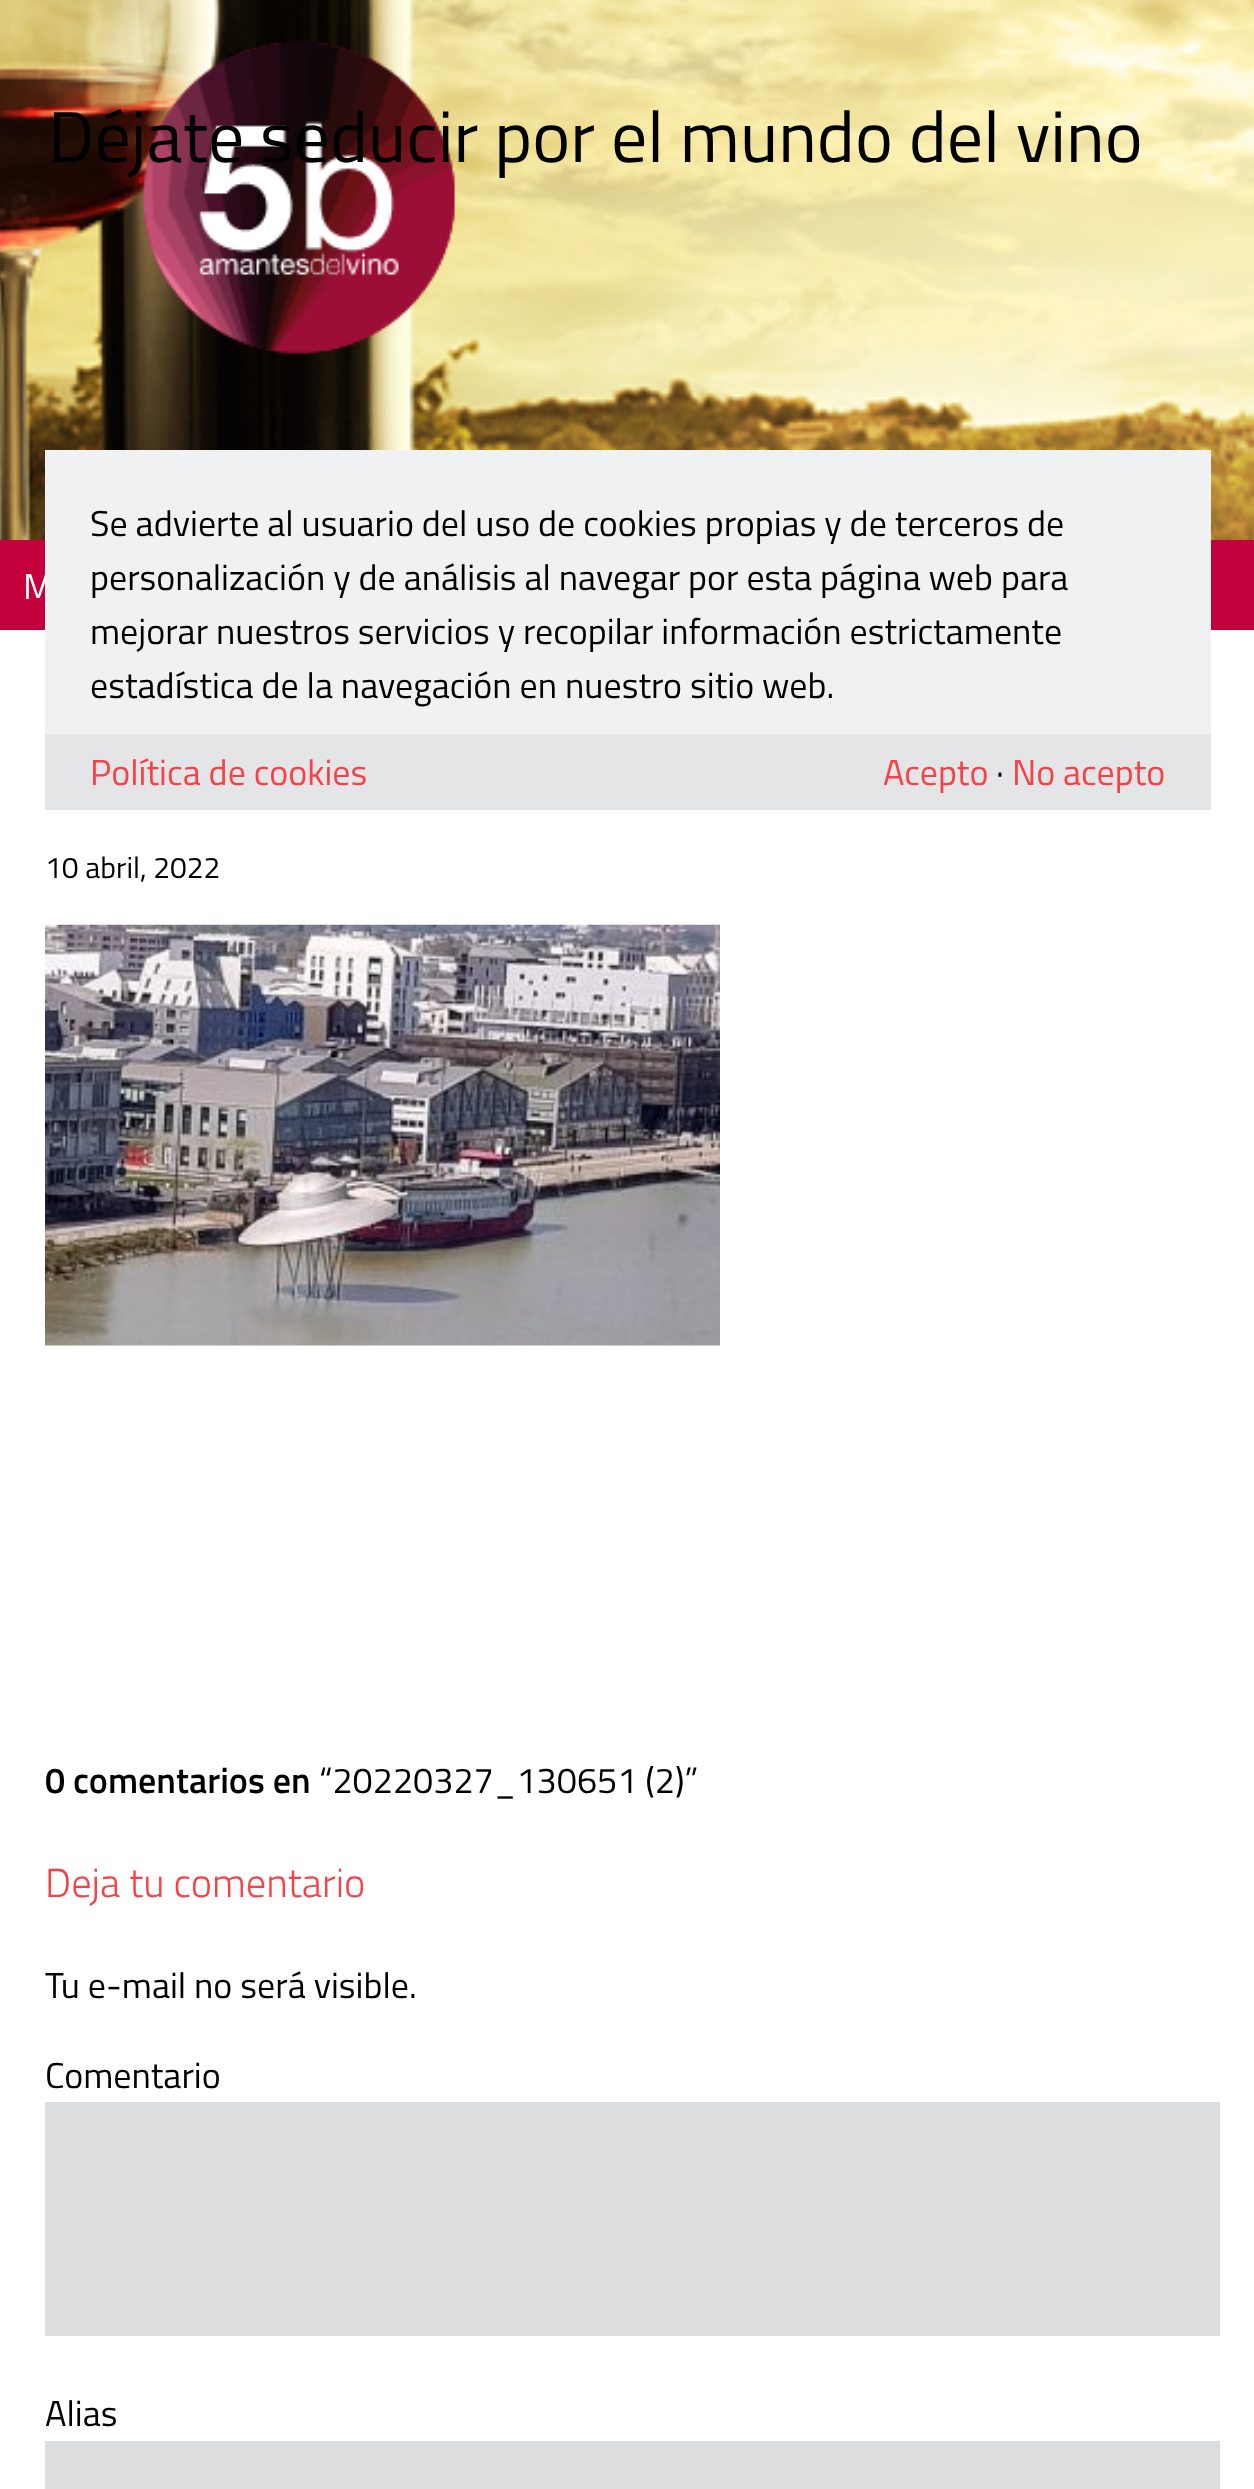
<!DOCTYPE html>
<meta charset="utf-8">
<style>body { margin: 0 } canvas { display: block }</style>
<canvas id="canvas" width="1254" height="2489"></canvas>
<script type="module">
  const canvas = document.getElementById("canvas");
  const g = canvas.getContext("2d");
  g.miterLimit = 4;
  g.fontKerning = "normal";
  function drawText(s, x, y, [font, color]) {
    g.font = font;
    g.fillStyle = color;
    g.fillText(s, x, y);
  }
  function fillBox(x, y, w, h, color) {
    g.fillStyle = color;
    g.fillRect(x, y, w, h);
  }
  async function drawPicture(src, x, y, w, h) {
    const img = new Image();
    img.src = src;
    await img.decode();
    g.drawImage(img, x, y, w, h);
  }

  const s1 = ["72px Titillium Web", "#000000"];
  const s2 = ["36px Titillium Web", "#FFFFFF"];
  const s3 = ["36px Titillium Web", "#000000"];
  const s4 = ["36px Titillium Web", "#F74147"];
  const s5 = ["30px Titillium Web", "#000000"];
  const s6 = ["600 36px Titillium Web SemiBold", "#000000"];
  const s7 = ["300 40.5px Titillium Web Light", "#F74147"];

  fillBox(0, 0, 1254, 2489, "#FFFFFF");
  await drawPicture("pic1.png", 0, 0, 1254, 540);
  await drawPicture("pic2.png", 141, 40, 315, 314);
  drawText("Déjate seducir por el mundo del vino", 48, 162, s1);
  fillBox(0, 540, 1254, 90, "#C4003D");
  drawText("M", 23, 599, s2);
  fillBox(45, 450, 1166, 284, "#F0F1F2");
  drawText("Se advierte al usuario del uso de cookies propias y de terceros de", 90, 536, s3);
  drawText("personalización y de análisis al navegar por esta página web para", 90, 590, s3);
  drawText("mejorar nuestros servicios y recopilar información estrictamente", 90, 644, s3);
  drawText("estadística de la navegación en nuestro sitio web.", 90, 698, s3);
  fillBox(45, 734, 1166, 76, "#E3E5E7");
  drawText("Política de cookies", 90, 785, s4);
  drawText("Acepto", 883, 785, s4);
  drawText("·", 996, 785, s3);
  drawText("No acepto", 1012, 785, s4);
  drawText("10 abril, 2022", 45, 878, s5);
  await drawPicture("pic3.png", 45, 924, 675, 422);
  drawText("0 comentarios en", 45, 1793, s6);
  drawText("“20220327_130651 (2)”", 319, 1793, s3);
  drawText("Deja tu comentario", 45, 1897, s7);
  drawText("Tu e-mail no será visible.", 45, 1998, s3);
  drawText("Comentario", 45, 2088, s3);
  fillBox(45, 2102, 1175, 234, "#DCDDDE");
  drawText("Alias", 45, 2426, s3);
  fillBox(45, 2441, 1175, 48, "#DCDDDE");
</script>
